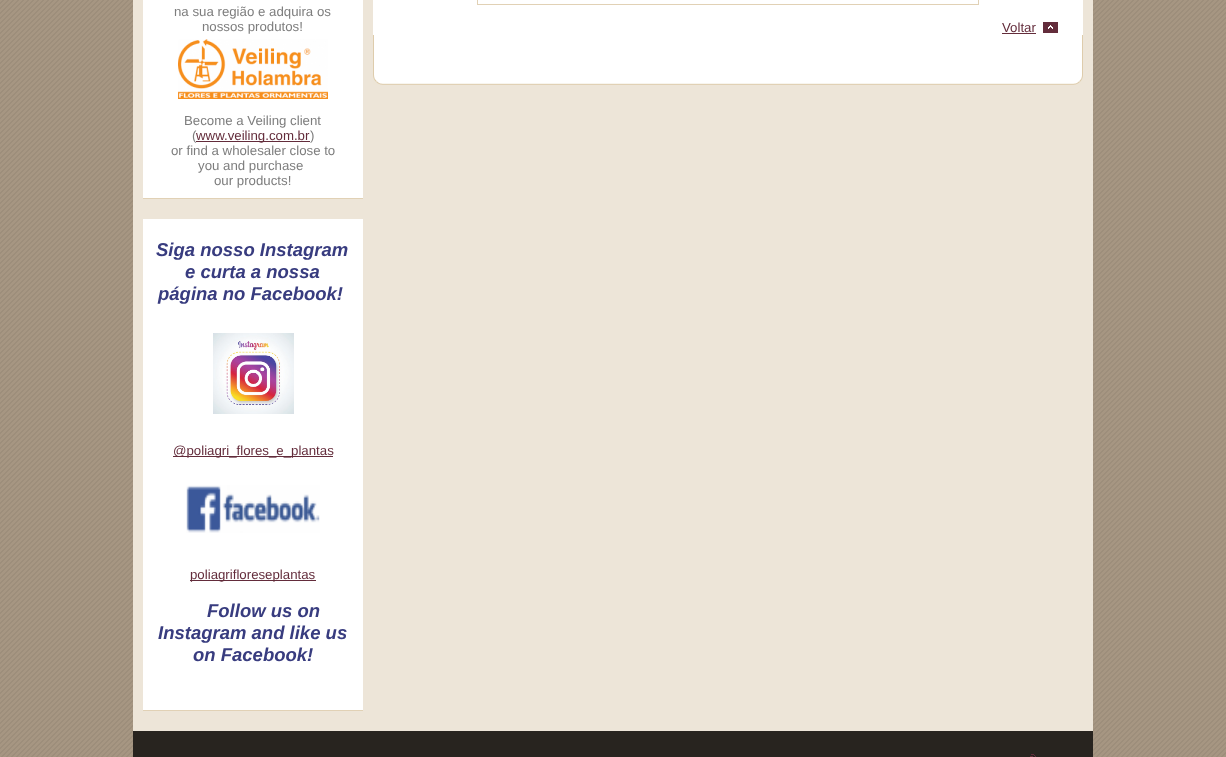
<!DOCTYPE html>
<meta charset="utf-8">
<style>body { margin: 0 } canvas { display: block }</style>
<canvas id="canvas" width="1226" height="757"></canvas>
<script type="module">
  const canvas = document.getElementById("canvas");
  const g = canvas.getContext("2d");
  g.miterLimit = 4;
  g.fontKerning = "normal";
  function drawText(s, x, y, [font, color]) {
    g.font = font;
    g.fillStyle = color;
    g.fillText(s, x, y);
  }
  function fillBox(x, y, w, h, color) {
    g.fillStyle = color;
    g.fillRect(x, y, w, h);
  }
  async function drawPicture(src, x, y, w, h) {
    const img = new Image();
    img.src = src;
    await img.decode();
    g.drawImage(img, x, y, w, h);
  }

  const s1 = ["13.25px Liberation Sans", "#7D7D7D"];
  const s2 = ["13.25px Liberation Sans", "#632C3B"];
  const s3 = ["italic bold 18.5px Liberation Sans", "#383C7F"];

  fillBox(0, 0, 1226, 757, "#FFFFFF");
  await drawPicture("pic1.png", 0, 0, 1226, 757);
  fillBox(133, 0, 960, 731, "#EDE5D8");
  fillBox(143, 0, 220, 198, "#FFFFFF");
  fillBox(143, 198, 220, 1, "#E1D1B5");
  drawText("na sua região e adquira os", 174, 16, s1);
  drawText("nossos produtos!", 202, 31, s1);
  await drawPicture("pic2.png", 178, 39, 150, 60);
  drawText("Become a Veiling client", 184, 125, s1);
  drawText("(", 192, 140, s1);
  fillBox(196, 141, 114, 1, "#632C3B");
  drawText("www.veiling.com.br", 196, 140, s2);
  drawText(")", 310, 140, s1);
  drawText("or find a wholesaler close to", 171, 155, s1);
  drawText("you and purchase", 198, 170, s1);
  drawText("our products!", 214, 185, s1);
  fillBox(143, 219, 220, 491, "#FFFFFF");
  fillBox(143, 710, 220, 1, "#E1D1B5");
  drawText("Siga nosso Instagram", 156, 256, s3);
  drawText("e curta a nossa", 185, 278, s3);
  drawText("página no Facebook!", 158, 300, s3);
  await drawPicture("pic3.png", 213, 333, 81, 81);
  fillBox(173, 456, 160, 1, "#632C3B");
  drawText("@poliagri_flores_e_plantas", 173, 455, s2);
  await drawPicture("pic4.png", 186, 485, 134, 48);
  fillBox(190, 580, 126, 1, "#632C3B");
  drawText("poliagrifloreseplantas", 190, 579, s2);
  drawText("Follow us on", 207, 617, s3);
  drawText("Instagram and like us", 158, 639, s3);
  drawText("on Facebook!", 193, 661, s3);
  await drawPicture("pic5.png", 373, 35, 710, 50);
  fillBox(373, 0, 710, 35, "#FFFFFF");
  g.strokeStyle = "#E1D1B5";
  g.strokeRect(477.5, -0.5, 501, 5);
  await drawPicture("pic6.png", 1043, 22, 15, 11);
  drawText("Voltar", 1002, 32, s2);
  fillBox(1002, 33, 34, 1, "#632C3B");
  fillBox(133, 731, 960, 26, "#28241F");
  await drawPicture("pic7.png", 1030, 754, 6, 3);
</script>
